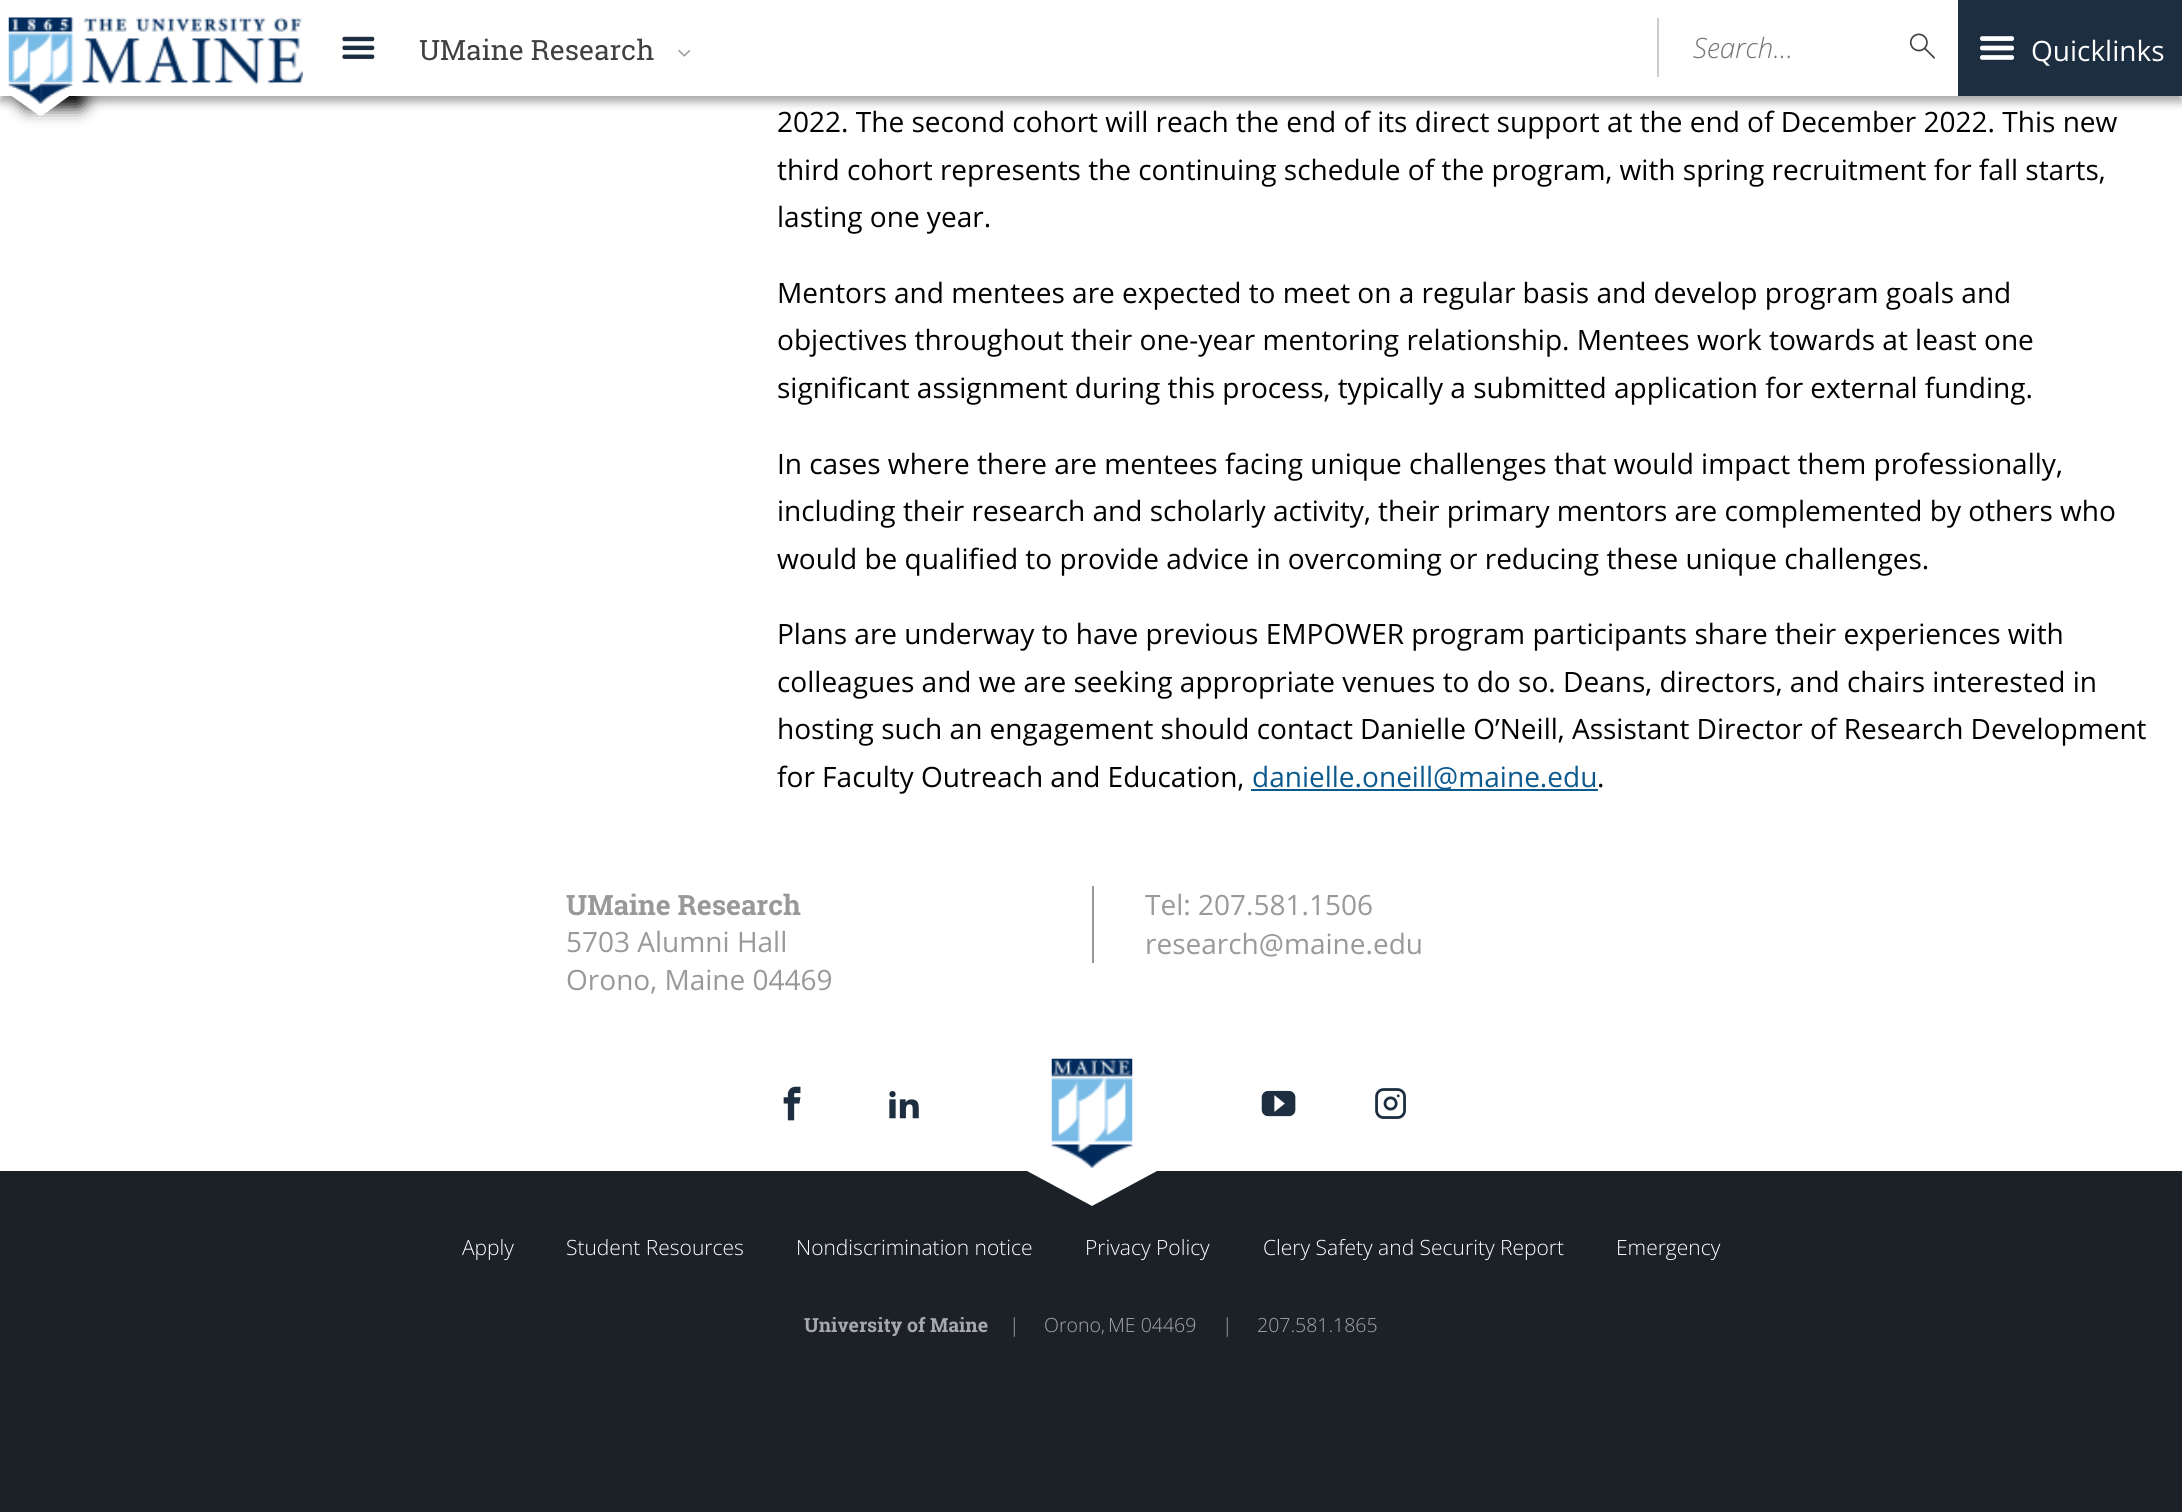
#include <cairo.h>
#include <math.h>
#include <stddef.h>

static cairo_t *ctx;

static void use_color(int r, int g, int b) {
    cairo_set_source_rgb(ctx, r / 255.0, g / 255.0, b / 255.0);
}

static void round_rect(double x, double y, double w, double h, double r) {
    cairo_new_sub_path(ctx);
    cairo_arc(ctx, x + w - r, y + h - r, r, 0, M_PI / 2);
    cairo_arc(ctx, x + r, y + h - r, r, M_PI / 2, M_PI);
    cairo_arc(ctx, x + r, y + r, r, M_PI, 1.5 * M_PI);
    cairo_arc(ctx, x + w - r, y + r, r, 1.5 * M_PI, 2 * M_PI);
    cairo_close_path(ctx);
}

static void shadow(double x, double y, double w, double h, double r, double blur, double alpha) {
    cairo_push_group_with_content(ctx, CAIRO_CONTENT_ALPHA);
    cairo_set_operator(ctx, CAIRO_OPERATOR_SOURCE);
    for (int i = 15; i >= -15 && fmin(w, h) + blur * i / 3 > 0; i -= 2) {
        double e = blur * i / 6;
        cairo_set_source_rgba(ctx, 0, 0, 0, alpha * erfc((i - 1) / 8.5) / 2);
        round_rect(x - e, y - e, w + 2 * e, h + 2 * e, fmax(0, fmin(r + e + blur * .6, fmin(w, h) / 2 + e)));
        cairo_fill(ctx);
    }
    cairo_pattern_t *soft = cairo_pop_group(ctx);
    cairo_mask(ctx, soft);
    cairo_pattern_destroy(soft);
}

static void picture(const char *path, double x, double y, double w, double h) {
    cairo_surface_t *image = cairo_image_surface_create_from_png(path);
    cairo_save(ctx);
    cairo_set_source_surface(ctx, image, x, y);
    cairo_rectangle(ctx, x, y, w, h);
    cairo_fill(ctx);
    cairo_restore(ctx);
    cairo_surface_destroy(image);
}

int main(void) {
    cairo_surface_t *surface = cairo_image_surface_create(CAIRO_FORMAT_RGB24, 2182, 1512);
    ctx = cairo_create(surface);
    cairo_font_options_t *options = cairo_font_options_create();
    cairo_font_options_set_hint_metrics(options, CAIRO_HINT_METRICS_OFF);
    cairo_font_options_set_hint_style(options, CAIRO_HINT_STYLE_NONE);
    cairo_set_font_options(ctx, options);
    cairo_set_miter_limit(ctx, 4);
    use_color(255, 255, 255);
    cairo_paint(ctx);
    use_color(0, 0, 0);
    shadow(0, 5, 2182, 97, 0, 4.5, 0.35);
    use_color(255, 255, 255);
    cairo_rectangle(ctx, 0, 0, 1958, 96);
    cairo_fill(ctx);
    use_color(0, 0, 0);
    shadow(23, 72, 61, 35, 4, 8.5, 1);
    use_color(255, 255, 255);
    cairo_new_path(ctx);
    cairo_move_to(ctx, 12, 93);
    cairo_line_to(ctx, 57, 62);
    cairo_curve_to(ctx, 58, 61, 61, 61, 63, 62);
    cairo_line_to(ctx, 87, 79);
    cairo_curve_to(ctx, 89, 81, 89, 82, 87, 83);
    cairo_line_to(ctx, 43, 115);
    cairo_curve_to(ctx, 41, 116, 39, 116, 37, 114);
    cairo_line_to(ctx, 13, 97);
    cairo_curve_to(ctx, 11, 96, 11, 94, 12, 93);
    cairo_close_path(ctx);
    cairo_fill(ctx);
    cairo_rectangle(ctx, 3, 52, 101, 44);
    cairo_fill(ctx);
    picture("img1.png", 8, 17, 295, 87);
    picture("img2.png", 342, 36, 33, 23);
    cairo_select_font_face(ctx, "Roboto Slab", CAIRO_FONT_SLANT_NORMAL, CAIRO_FONT_WEIGHT_NORMAL);
    cairo_set_font_size(ctx, 28);
    use_color(64, 64, 65);
    cairo_move_to(ctx, 419, 60);
    cairo_show_text(ctx, "UMaine Research");
    picture("img3.png", 678, 49, 13, 8);
    use_color(204, 204, 204);
    cairo_rectangle(ctx, 1657, 18, 2, 59);
    cairo_fill(ctx);
    cairo_select_font_face(ctx, "Open Sans Light", CAIRO_FONT_SLANT_ITALIC, CAIRO_FONT_WEIGHT_NORMAL);
    use_color(117, 117, 117);
    cairo_move_to(ctx, 1693, 58);
    cairo_show_text(ctx, "Search...");
    picture("img4.png", 1909, 33, 26, 26);
    use_color(28, 46, 63);
    cairo_rectangle(ctx, 1958, 0, 224, 96);
    cairo_fill(ctx);
    picture("img5.png", 1980, 36, 35, 24);
    cairo_select_font_face(ctx, "Open Sans", CAIRO_FONT_SLANT_NORMAL, CAIRO_FONT_WEIGHT_NORMAL);
    use_color(255, 255, 255);
    cairo_move_to(ctx, 2031, 61);
    cairo_show_text(ctx, "Quicklinks");
    use_color(0, 0, 0);
    cairo_move_to(ctx, 777, 132);
    cairo_show_text(ctx, "2022. The second cohort will reach the end of its direct support at the end of December 2022. This new");
    cairo_move_to(ctx, 777, 180);
    cairo_show_text(ctx, "third cohort represents the continuing schedule of the program, with spring recruitment for fall starts,");
    cairo_move_to(ctx, 777, 227);
    cairo_show_text(ctx, "lasting one year.");
    cairo_move_to(ctx, 777, 303);
    cairo_show_text(ctx, "Mentors and mentees are expected to meet on a regular basis and develop program goals and");
    cairo_move_to(ctx, 777, 350);
    cairo_show_text(ctx, "objectives throughout their one-year mentoring relationship. Mentees work towards at least one");
    cairo_move_to(ctx, 777, 398);
    cairo_show_text(ctx, "significant assignment during this process, typically a submitted application for external funding.");
    cairo_move_to(ctx, 777, 474);
    cairo_show_text(ctx, "In cases where there are mentees facing unique challenges that would impact them professionally,");
    cairo_move_to(ctx, 777, 521);
    cairo_show_text(ctx, "including their research and scholarly activity, their primary mentors are complemented by others who");
    cairo_move_to(ctx, 777, 569);
    cairo_show_text(ctx, "would be qualified to provide advice in overcoming or reducing these unique challenges.");
    cairo_move_to(ctx, 777, 644);
    cairo_show_text(ctx, "Plans are underway to have previous EMPOWER program participants share their experiences with");
    cairo_move_to(ctx, 777, 692);
    cairo_show_text(ctx, "colleagues and we are seeking appropriate venues to do so. Deans, directors, and chairs interested in");
    cairo_move_to(ctx, 777, 739);
    cairo_show_text(ctx, "hosting such an engagement should contact Danielle O’Neill, Assistant Director of Research Development");
    cairo_move_to(ctx, 777, 787);
    cairo_show_text(ctx, "for Faculty Outreach and Education,");
    use_color(12, 89, 142);
    cairo_rectangle(ctx, 1251, 789, 347, 2);
    cairo_fill(ctx);
    cairo_move_to(ctx, 1252, 787);
    cairo_show_text(ctx, "danielle.oneill@maine.edu");
    use_color(0, 0, 0);
    cairo_move_to(ctx, 1597, 787);
    cairo_show_text(ctx, ".");
    cairo_select_font_face(ctx, "Roboto Slab", CAIRO_FONT_SLANT_NORMAL, CAIRO_FONT_WEIGHT_BOLD);
    use_color(153, 153, 153);
    cairo_move_to(ctx, 566, 915);
    cairo_show_text(ctx, "UMaine Research");
    cairo_select_font_face(ctx, "Open Sans", CAIRO_FONT_SLANT_NORMAL, CAIRO_FONT_WEIGHT_NORMAL);
    cairo_move_to(ctx, 566, 952);
    cairo_show_text(ctx, "5703 Alumni Hall");
    cairo_move_to(ctx, 566, 990);
    cairo_show_text(ctx, "Orono, Maine 04469");
    cairo_rectangle(ctx, 1092, 886, 2, 77);
    cairo_fill(ctx);
    cairo_move_to(ctx, 1145, 915);
    cairo_show_text(ctx, "Tel: 207.581.1506");
    cairo_move_to(ctx, 1145, 954);
    cairo_show_text(ctx, "research@maine.edu");
    picture("img6.png", 1051, 1058, 82, 110);
    picture("img7.png", 783, 1086, 18, 35);
    picture("img8.png", 889, 1091, 30, 28);
    picture("img9.png", 1261, 1090, 35, 27);
    picture("img10.png", 1375, 1088, 31, 31);
    use_color(28, 33, 40);
    cairo_rectangle(ctx, 0, 1171, 2182, 341);
    cairo_fill(ctx);
    use_color(255, 255, 255);
    cairo_new_path(ctx);
    cairo_move_to(ctx, 1027, 1171);
    cairo_line_to(ctx, 1157, 1171);
    cairo_line_to(ctx, 1092, 1206);
    cairo_close_path(ctx);
    cairo_fill(ctx);
    cairo_select_font_face(ctx, "Open Sans Light", CAIRO_FONT_SLANT_NORMAL, CAIRO_FONT_WEIGHT_NORMAL);
    cairo_set_font_size(ctx, 21);
    cairo_move_to(ctx, 462, 1255);
    cairo_show_text(ctx, "Apply");
    cairo_move_to(ctx, 566, 1255);
    cairo_show_text(ctx, "Student Resources");
    cairo_move_to(ctx, 796, 1255);
    cairo_show_text(ctx, "Nondiscrimination notice");
    cairo_move_to(ctx, 1085, 1255);
    cairo_show_text(ctx, "Privacy Policy");
    cairo_move_to(ctx, 1263, 1255);
    cairo_show_text(ctx, "Clery Safety and Security Report");
    cairo_move_to(ctx, 1616, 1255);
    cairo_show_text(ctx, "Emergency");
    cairo_select_font_face(ctx, "Roboto Slab", CAIRO_FONT_SLANT_NORMAL, CAIRO_FONT_WEIGHT_BOLD);
    cairo_set_font_size(ctx, 19.5);
    use_color(166, 168, 171);
    cairo_move_to(ctx, 804, 1332);
    cairo_show_text(ctx, "University of Maine");
    cairo_select_font_face(ctx, "Open Sans Light", CAIRO_FONT_SLANT_NORMAL, CAIRO_FONT_WEIGHT_NORMAL);
    cairo_move_to(ctx, 1009, 1332);
    cairo_show_text(ctx, "|");
    cairo_move_to(ctx, 1044, 1332);
    cairo_show_text(ctx, "Orono,");
    cairo_move_to(ctx, 1108, 1332);
    cairo_show_text(ctx, "ME 04469");
    cairo_move_to(ctx, 1222, 1332);
    cairo_show_text(ctx, "|");
    cairo_move_to(ctx, 1257, 1332);
    cairo_show_text(ctx, "207.581.1865");
    cairo_surface_write_to_png(surface, "result.png");
    cairo_font_options_destroy(options);
    cairo_destroy(ctx);
    cairo_surface_destroy(surface);
    return 0;
}
